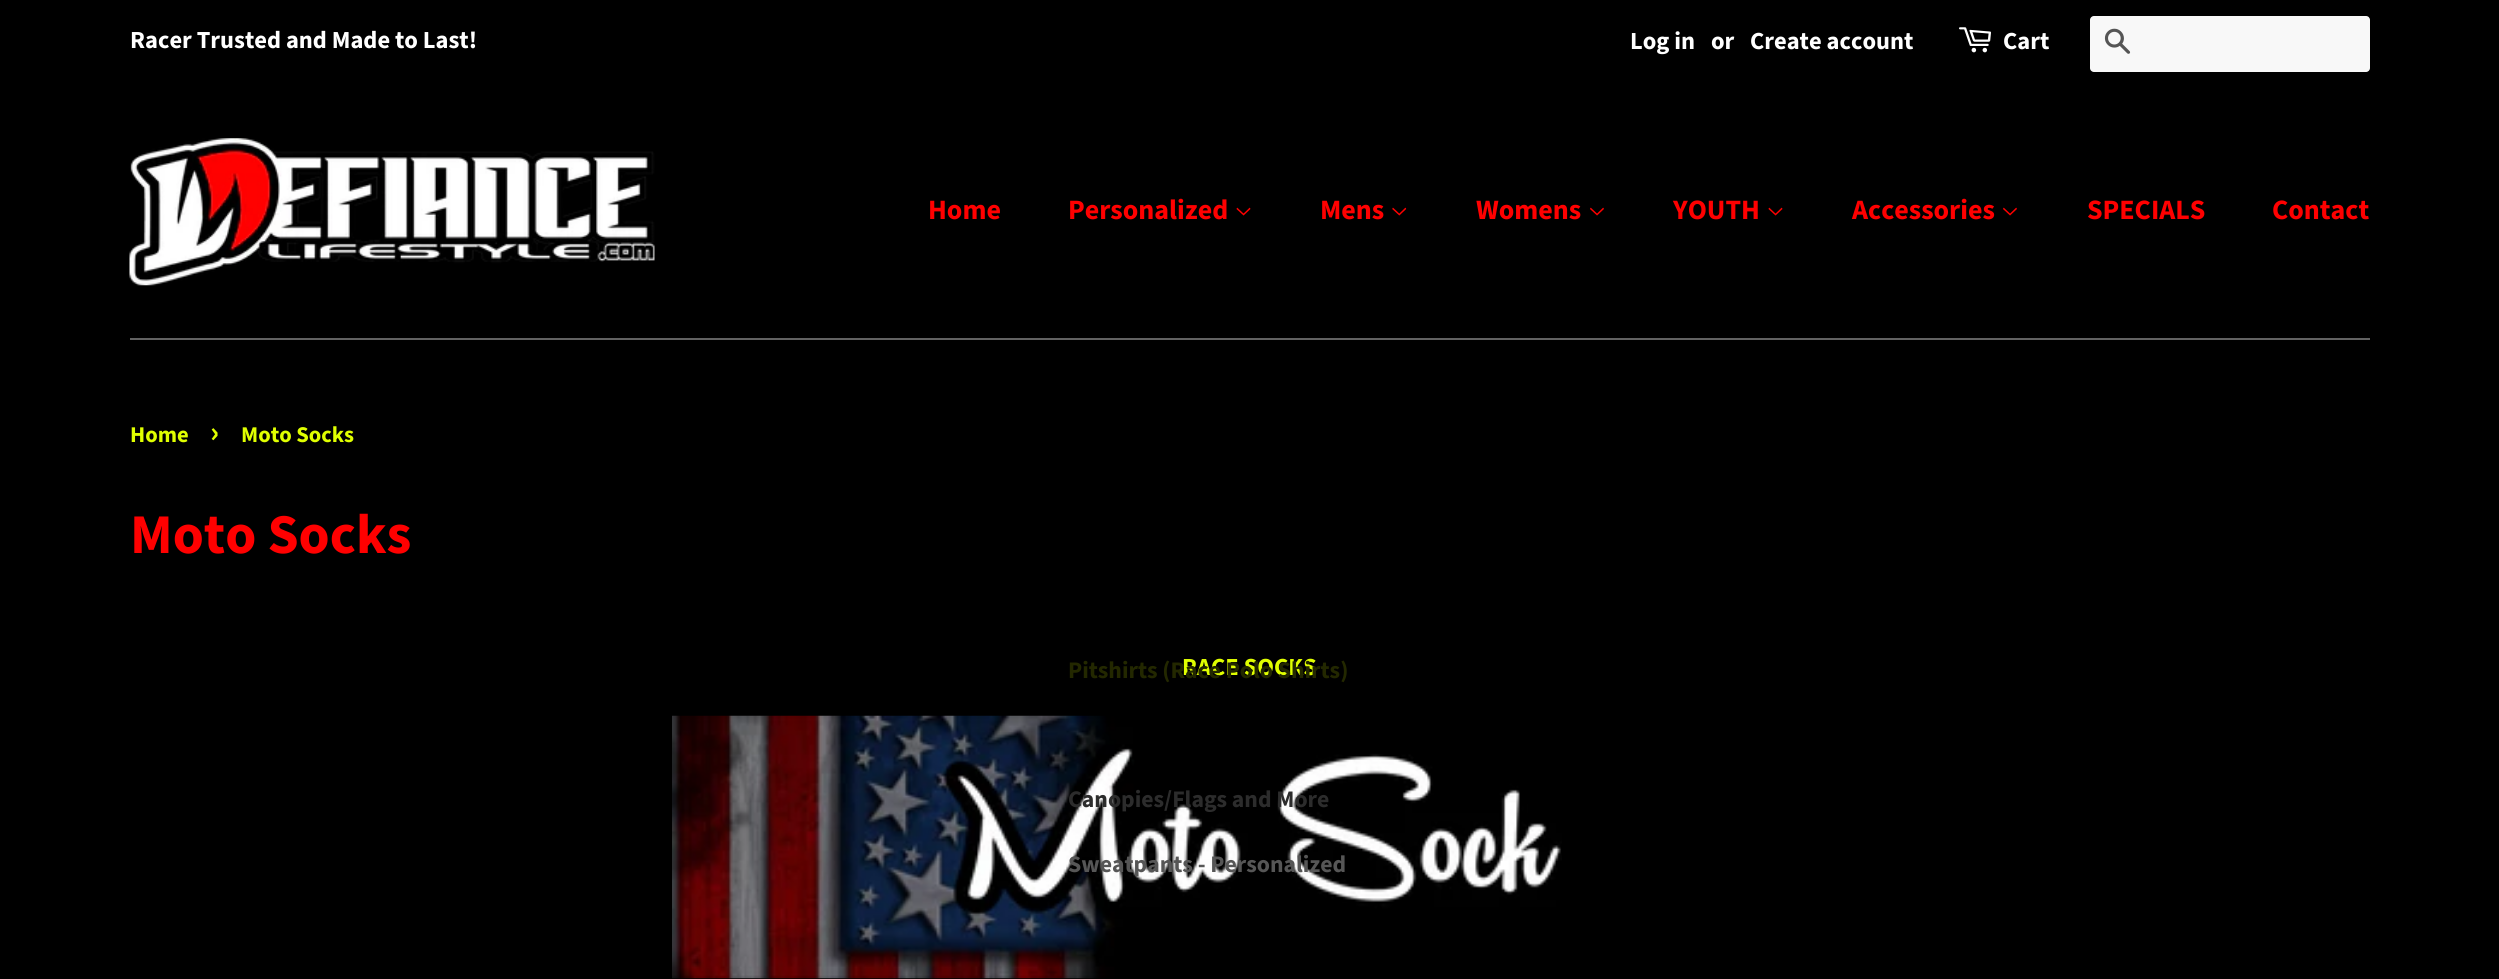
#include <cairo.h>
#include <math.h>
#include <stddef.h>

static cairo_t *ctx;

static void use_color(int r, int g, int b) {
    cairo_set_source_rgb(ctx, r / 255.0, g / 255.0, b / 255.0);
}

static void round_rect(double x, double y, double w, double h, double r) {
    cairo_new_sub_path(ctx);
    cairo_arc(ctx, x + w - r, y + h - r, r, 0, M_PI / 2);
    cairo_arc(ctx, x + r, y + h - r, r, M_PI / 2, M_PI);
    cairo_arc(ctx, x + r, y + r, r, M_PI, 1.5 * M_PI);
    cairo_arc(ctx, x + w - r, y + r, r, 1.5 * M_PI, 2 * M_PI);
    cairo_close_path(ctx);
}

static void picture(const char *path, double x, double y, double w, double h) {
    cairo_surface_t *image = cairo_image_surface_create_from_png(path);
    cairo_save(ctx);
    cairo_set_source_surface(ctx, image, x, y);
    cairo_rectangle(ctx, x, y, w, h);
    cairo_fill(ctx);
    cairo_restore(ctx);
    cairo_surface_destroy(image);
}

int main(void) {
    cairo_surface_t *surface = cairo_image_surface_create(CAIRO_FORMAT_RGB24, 2499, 979);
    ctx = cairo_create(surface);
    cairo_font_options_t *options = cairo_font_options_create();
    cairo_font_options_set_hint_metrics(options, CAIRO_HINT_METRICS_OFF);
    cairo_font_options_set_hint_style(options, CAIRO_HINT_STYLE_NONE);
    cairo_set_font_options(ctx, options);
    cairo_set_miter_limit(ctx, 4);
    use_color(0, 0, 0);
    cairo_paint(ctx);
    cairo_select_font_face(ctx, "Source Sans Pro", CAIRO_FONT_SLANT_NORMAL, CAIRO_FONT_WEIGHT_BOLD);
    cairo_set_font_size(ctx, 24.5);
    use_color(255, 255, 255);
    cairo_move_to(ctx, 130, 48);
    cairo_show_text(ctx, "Racer Trusted and Made to Last!");
    cairo_move_to(ctx, 1630, 49);
    cairo_show_text(ctx, "Log in");
    cairo_move_to(ctx, 1711, 49);
    cairo_show_text(ctx, "or");
    cairo_move_to(ctx, 1750, 49);
    cairo_show_text(ctx, "Create account");
    picture("img1.png", 1959, 27, 32, 26);
    cairo_move_to(ctx, 2003, 49);
    cairo_show_text(ctx, "Cart");
    round_rect(2090, 16, 280, 56, 4);
    cairo_fill(ctx);
    cairo_set_source_rgba(ctx, 0, 0, 0, 0.03);
    cairo_rectangle(ctx, 2090, 16, 280, 56);
    cairo_fill(ctx);
    picture("img2.png", 2104, 28, 27, 26);
    use_color(98, 98, 98);
    cairo_rectangle(ctx, 130, 338, 2240, 2);
    cairo_fill(ctx);
    picture("img3.png", 129, 138, 526, 148);
    cairo_set_font_size(ctx, 28);
    use_color(255, 0, 0);
    cairo_move_to(ctx, 928, 219);
    cairo_show_text(ctx, "Home");
    cairo_move_to(ctx, 1068, 219);
    cairo_show_text(ctx, "Personalized");
    picture("img4.png", 1236, 207, 15, 9);
    cairo_set_font_size(ctx, 24.5);
    use_color(224, 255, 0);
    cairo_move_to(ctx, 1182, 675);
    cairo_show_text(ctx, "RACE SOCKS");
    cairo_set_font_size(ctx, 23.75);
    use_color(35, 40, 0);
    cairo_move_to(ctx, 1068, 678);
    cairo_show_text(ctx, "Pitshirts (Race Polo Shirts)");
    picture("img7.png", 672, 715, 890, 264);
    use_color(44, 44, 44);
    cairo_move_to(ctx, 1068, 807);
    cairo_show_text(ctx, "Canopies/Flags and More");
    use_color(86, 86, 86);
    cairo_move_to(ctx, 1068, 872);
    cairo_show_text(ctx, "Sweatpants - Personalized");
    cairo_set_font_size(ctx, 28);
    use_color(255, 0, 0);
    cairo_move_to(ctx, 1320, 219);
    cairo_show_text(ctx, "Mens");
    picture("img5.png", 1392, 207, 15, 9);
    cairo_move_to(ctx, 1476, 219);
    cairo_show_text(ctx, "Womens");
    picture("img6.png", 1590, 207, 14, 9);
    cairo_move_to(ctx, 1673, 219);
    cairo_show_text(ctx, "YOUTH");
    picture("img4.png", 1768, 207, 15, 9);
    cairo_move_to(ctx, 1852, 219);
    cairo_show_text(ctx, "Accessories");
    picture("img6.png", 2003, 207, 14, 9);
    cairo_move_to(ctx, 2087, 219);
    cairo_show_text(ctx, "SPECIALS");
    cairo_move_to(ctx, 2272, 219);
    cairo_show_text(ctx, "Contact");
    cairo_set_font_size(ctx, 22.5);
    use_color(224, 255, 0);
    cairo_move_to(ctx, 130, 442);
    cairo_show_text(ctx, "Home");
    cairo_set_font_size(ctx, 31);
    cairo_move_to(ctx, 210, 442);
    cairo_show_text(ctx, "›");
    cairo_set_font_size(ctx, 22.5);
    cairo_move_to(ctx, 241, 442);
    cairo_show_text(ctx, "Moto Socks");
    cairo_set_font_size(ctx, 56);
    use_color(255, 0, 0);
    cairo_move_to(ctx, 130, 553);
    cairo_show_text(ctx, "Moto Socks");
    cairo_surface_write_to_png(surface, "result.png");
    cairo_font_options_destroy(options);
    cairo_destroy(ctx);
    cairo_surface_destroy(surface);
    return 0;
}
